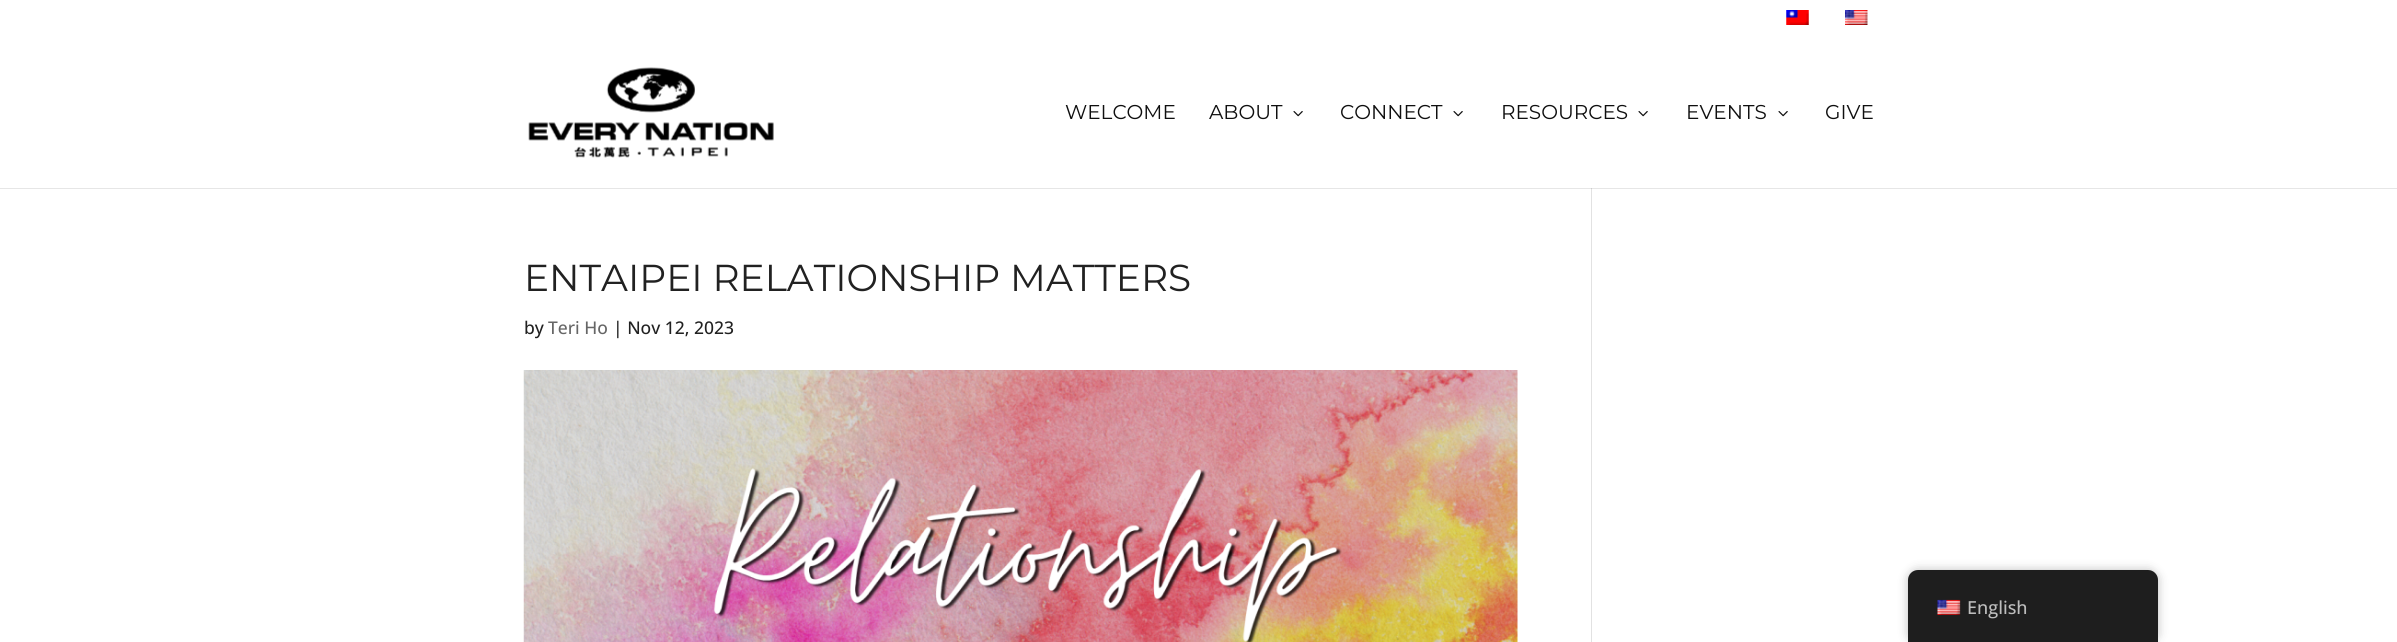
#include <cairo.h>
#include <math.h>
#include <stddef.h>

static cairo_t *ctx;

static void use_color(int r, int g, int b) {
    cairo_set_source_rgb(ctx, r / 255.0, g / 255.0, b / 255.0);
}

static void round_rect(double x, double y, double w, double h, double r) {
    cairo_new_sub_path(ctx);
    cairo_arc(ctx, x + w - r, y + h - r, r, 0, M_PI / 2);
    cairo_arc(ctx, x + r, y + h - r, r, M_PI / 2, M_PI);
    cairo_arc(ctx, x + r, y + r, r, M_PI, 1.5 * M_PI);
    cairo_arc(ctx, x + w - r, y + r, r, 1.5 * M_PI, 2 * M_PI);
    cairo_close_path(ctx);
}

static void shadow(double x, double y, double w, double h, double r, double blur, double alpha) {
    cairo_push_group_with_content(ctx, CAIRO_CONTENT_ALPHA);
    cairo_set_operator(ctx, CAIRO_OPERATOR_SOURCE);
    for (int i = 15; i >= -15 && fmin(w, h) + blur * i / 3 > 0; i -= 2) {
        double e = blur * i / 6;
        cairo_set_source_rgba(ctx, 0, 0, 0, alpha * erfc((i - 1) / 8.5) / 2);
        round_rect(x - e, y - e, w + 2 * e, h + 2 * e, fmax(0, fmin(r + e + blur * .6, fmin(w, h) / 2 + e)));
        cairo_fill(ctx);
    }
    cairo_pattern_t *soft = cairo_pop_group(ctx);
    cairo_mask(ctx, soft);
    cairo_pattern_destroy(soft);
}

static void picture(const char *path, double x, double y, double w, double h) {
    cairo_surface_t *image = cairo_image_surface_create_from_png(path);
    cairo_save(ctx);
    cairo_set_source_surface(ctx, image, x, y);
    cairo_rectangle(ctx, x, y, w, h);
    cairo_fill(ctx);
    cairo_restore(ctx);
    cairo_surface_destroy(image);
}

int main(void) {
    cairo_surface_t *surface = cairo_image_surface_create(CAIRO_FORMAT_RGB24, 2397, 642);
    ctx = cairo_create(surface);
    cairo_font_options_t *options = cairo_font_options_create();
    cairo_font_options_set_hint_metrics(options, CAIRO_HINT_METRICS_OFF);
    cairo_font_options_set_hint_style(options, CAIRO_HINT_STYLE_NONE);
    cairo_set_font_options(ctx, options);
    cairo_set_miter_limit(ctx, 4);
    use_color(255, 255, 255);
    cairo_paint(ctx);
    picture("img1.png", 1786, 10, 23, 15);
    picture("img2.png", 1845, 10, 23, 15);
    use_color(226, 226, 226);
    cairo_rectangle(ctx, 1591, 188, 1, 454);
    cairo_fill(ctx);
    cairo_set_source_rgba(ctx, 0, 0, 0, 0.1);
    cairo_new_path(ctx);
    cairo_move_to(ctx, 0, 188);
    cairo_line_to(ctx, 0, 189);
    cairo_line_to(ctx, 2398, 189);
    cairo_line_to(ctx, 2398, 39);
    cairo_line_to(ctx, 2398, 188);
    cairo_close_path(ctx);
    cairo_fill(ctx);
    picture("img3.png", 528, 67, 246, 91);
    cairo_select_font_face(ctx, "Montserrat", CAIRO_FONT_SLANT_NORMAL, CAIRO_FONT_WEIGHT_NORMAL);
    cairo_set_font_size(ctx, 20);
    use_color(15, 15, 15);
    cairo_move_to(ctx, 1065, 119);
    cairo_show_text(ctx, "WELCOME");
    cairo_move_to(ctx, 1209, 119);
    cairo_show_text(ctx, "ABOUT");
    picture("img4.png", 1293, 111, 10, 6);
    cairo_move_to(ctx, 1340, 119);
    cairo_show_text(ctx, "CONNECT");
    picture("img4.png", 1453, 111, 10, 6);
    cairo_move_to(ctx, 1501, 119);
    cairo_show_text(ctx, "RESOURCES");
    picture("img4.png", 1638, 111, 10, 6);
    cairo_move_to(ctx, 1686, 119);
    cairo_show_text(ctx, "EVENTS");
    picture("img4.png", 1778, 111, 10, 6);
    cairo_move_to(ctx, 1825, 119);
    cairo_show_text(ctx, "GIVE");
    cairo_set_font_size(ctx, 37.5);
    use_color(33, 33, 33);
    cairo_move_to(ctx, 524, 291);
    cairo_show_text(ctx, "ENTAIPEI RELATIONSHIP MATTERS");
    cairo_select_font_face(ctx, "Open Sans Medium", CAIRO_FONT_SLANT_NORMAL, CAIRO_FONT_WEIGHT_NORMAL);
    cairo_set_font_size(ctx, 17.5);
    cairo_move_to(ctx, 524, 334);
    cairo_show_text(ctx, "by");
    use_color(102, 102, 102);
    cairo_move_to(ctx, 548, 334);
    cairo_show_text(ctx, "Teri Ho");
    use_color(33, 33, 33);
    cairo_move_to(ctx, 613, 334);
    cairo_show_text(ctx, "| Nov 12, 2023");
    picture("img5.png", 523, 370, 995, 272);
    use_color(0, 0, 0);
    shadow(1908, 570, 250, 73, 10, 5, 0.25);
    use_color(30, 30, 30);
    cairo_new_path(ctx);
    cairo_move_to(ctx, 1918, 570);
    cairo_line_to(ctx, 2148, 570);
    cairo_curve_to(ctx, 2153.5, 570, 2158, 574.5, 2158, 580);
    cairo_line_to(ctx, 2158, 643);
    cairo_line_to(ctx, 1908, 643);
    cairo_line_to(ctx, 1908, 580);
    cairo_curve_to(ctx, 1908, 574.5, 1912.5, 570, 1918, 570);
    cairo_close_path(ctx);
    cairo_fill(ctx);
    picture("img6.png", 1937, 599, 24, 16);
    cairo_set_font_size(ctx, 18);
    use_color(189, 189, 189);
    cairo_move_to(ctx, 1967, 614);
    cairo_show_text(ctx, "English");
    cairo_surface_write_to_png(surface, "result.png");
    cairo_font_options_destroy(options);
    cairo_destroy(ctx);
    cairo_surface_destroy(surface);
    return 0;
}
